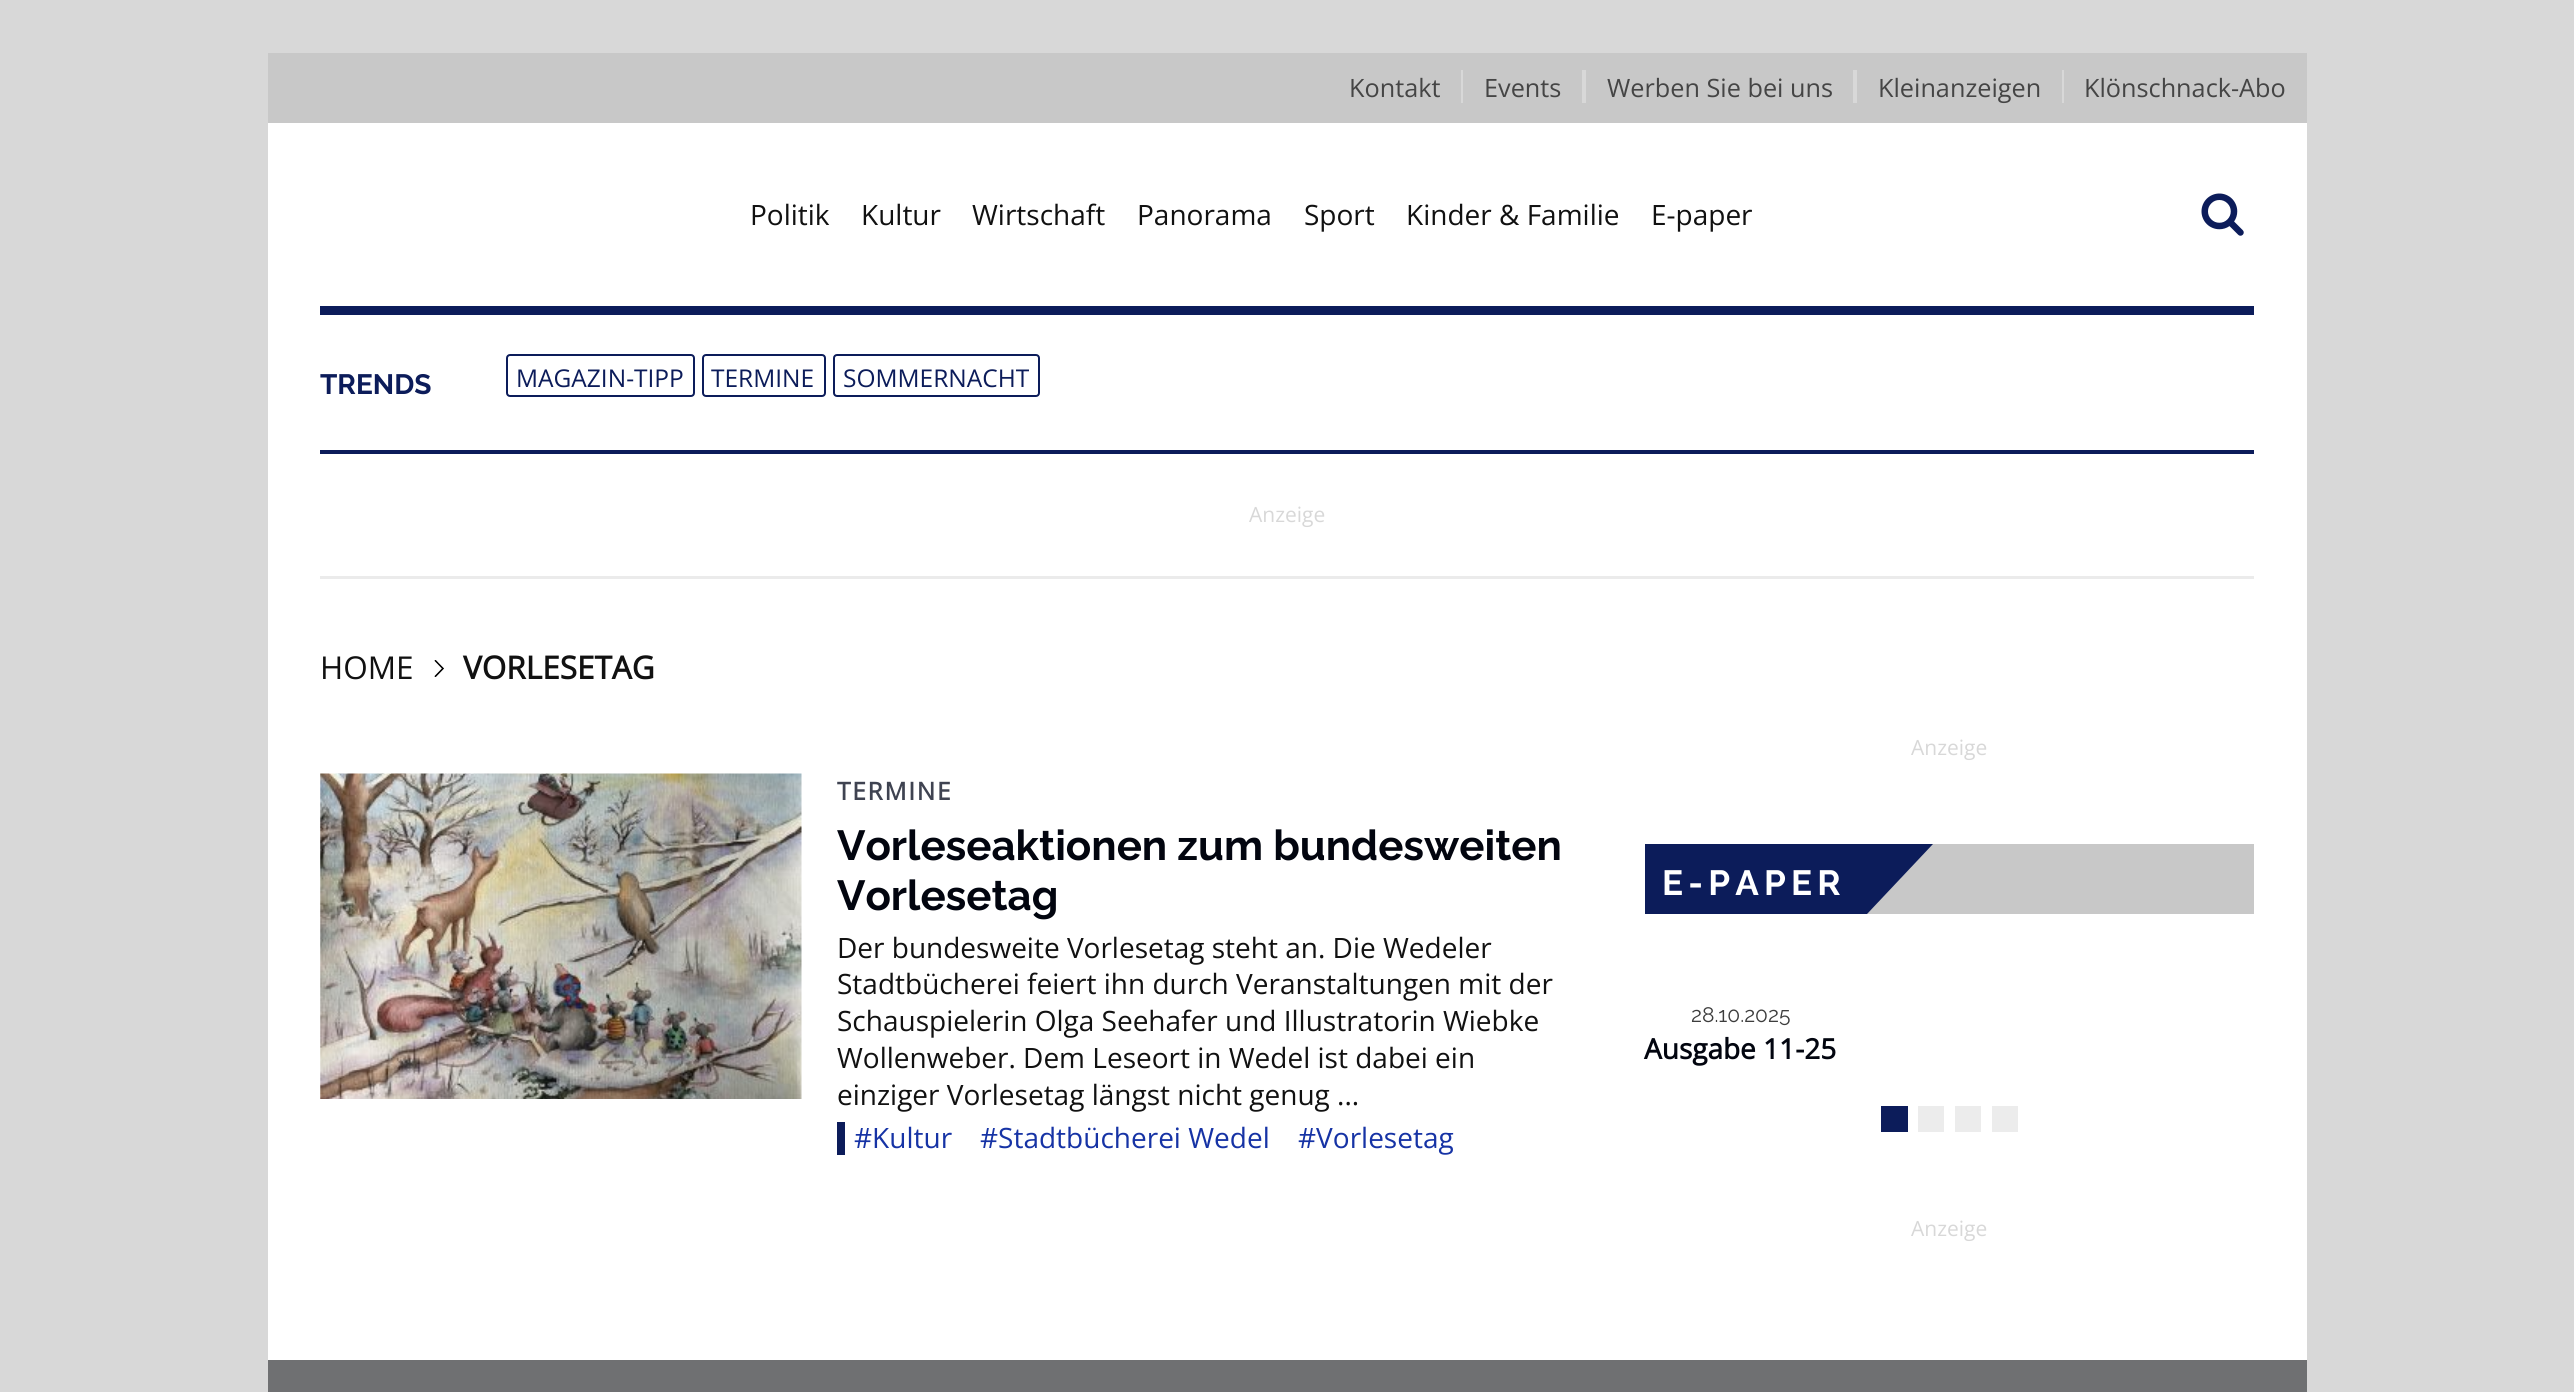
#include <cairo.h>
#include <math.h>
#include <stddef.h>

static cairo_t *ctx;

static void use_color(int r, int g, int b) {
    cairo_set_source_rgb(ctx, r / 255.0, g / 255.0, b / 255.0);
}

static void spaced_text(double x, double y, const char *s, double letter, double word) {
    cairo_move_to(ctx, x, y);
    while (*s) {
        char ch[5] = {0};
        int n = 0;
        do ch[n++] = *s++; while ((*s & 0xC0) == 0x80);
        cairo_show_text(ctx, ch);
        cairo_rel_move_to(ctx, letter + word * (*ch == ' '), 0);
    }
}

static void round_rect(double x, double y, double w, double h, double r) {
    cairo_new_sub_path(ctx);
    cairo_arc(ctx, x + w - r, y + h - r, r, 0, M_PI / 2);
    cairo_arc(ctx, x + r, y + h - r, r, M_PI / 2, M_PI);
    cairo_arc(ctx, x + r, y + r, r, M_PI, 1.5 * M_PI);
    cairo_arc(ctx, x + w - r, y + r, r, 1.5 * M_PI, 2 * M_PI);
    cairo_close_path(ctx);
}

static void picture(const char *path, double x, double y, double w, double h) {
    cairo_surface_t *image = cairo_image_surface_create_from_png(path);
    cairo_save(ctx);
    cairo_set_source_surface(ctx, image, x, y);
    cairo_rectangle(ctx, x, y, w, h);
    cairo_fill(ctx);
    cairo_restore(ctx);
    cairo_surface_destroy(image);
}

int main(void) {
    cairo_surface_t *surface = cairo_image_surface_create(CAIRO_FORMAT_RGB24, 2574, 1392);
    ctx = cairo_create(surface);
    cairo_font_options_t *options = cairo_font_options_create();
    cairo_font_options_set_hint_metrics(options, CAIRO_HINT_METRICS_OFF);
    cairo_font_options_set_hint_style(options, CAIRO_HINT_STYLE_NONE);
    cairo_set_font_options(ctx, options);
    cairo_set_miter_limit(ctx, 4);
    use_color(216, 216, 216);
    cairo_paint(ctx);
    use_color(255, 255, 255);
    cairo_rectangle(ctx, 268, 123, 2039, 1237);
    cairo_fill(ctx);
    use_color(200, 200, 200);
    cairo_rectangle(ctx, 268, 53, 2039, 70);
    cairo_fill(ctx);
    cairo_select_font_face(ctx, "Open Sans", CAIRO_FONT_SLANT_NORMAL, CAIRO_FONT_WEIGHT_NORMAL);
    cairo_set_font_size(ctx, 25.25);
    use_color(69, 69, 69);
    cairo_move_to(ctx, 1349, 97);
    cairo_show_text(ctx, "Kontakt");
    cairo_move_to(ctx, 1484, 97);
    cairo_show_text(ctx, "Events");
    use_color(216, 216, 216);
    cairo_rectangle(ctx, 1582, 70, 4, 33);
    cairo_fill(ctx);
    cairo_rectangle(ctx, 1461, 70, 2, 33);
    cairo_fill(ctx);
    use_color(69, 69, 69);
    cairo_move_to(ctx, 1607, 97);
    cairo_show_text(ctx, "Werben Sie bei uns");
    use_color(216, 216, 216);
    cairo_rectangle(ctx, 1853, 70, 4, 33);
    cairo_fill(ctx);
    use_color(69, 69, 69);
    cairo_move_to(ctx, 1878, 97);
    cairo_show_text(ctx, "Kleinanzeigen");
    use_color(216, 216, 216);
    cairo_rectangle(ctx, 2062, 70, 2, 33);
    cairo_fill(ctx);
    use_color(69, 69, 69);
    cairo_move_to(ctx, 2084, 97);
    cairo_show_text(ctx, "Klönschnack-Abo");
    use_color(12, 28, 90);
    cairo_rectangle(ctx, 320, 306, 1934, 9);
    cairo_fill(ctx);
    cairo_set_font_size(ctx, 28);
    use_color(17, 17, 17);
    cairo_move_to(ctx, 750, 225);
    cairo_show_text(ctx, "Politik");
    cairo_move_to(ctx, 861, 225);
    cairo_show_text(ctx, "Kultur");
    cairo_move_to(ctx, 972, 225);
    cairo_show_text(ctx, "Wirtschaft");
    cairo_move_to(ctx, 1137, 225);
    cairo_show_text(ctx, "Panorama");
    cairo_move_to(ctx, 1304, 225);
    cairo_show_text(ctx, "Sport");
    cairo_move_to(ctx, 1406, 225);
    cairo_show_text(ctx, "Kinder & Familie");
    cairo_move_to(ctx, 1651, 225);
    cairo_show_text(ctx, "E-paper");
    picture("img1.png", 2201, 193, 43, 43);
    use_color(12, 28, 90);
    cairo_rectangle(ctx, 320, 450, 1934, 4);
    cairo_fill(ctx);
    cairo_select_font_face(ctx, "Raleway", CAIRO_FONT_SLANT_NORMAL, CAIRO_FONT_WEIGHT_BOLD);
    cairo_move_to(ctx, 320, 394);
    cairo_show_text(ctx, "TRENDS");
    round_rect(507, 355, 187, 41, 3);
    cairo_stroke(ctx);
    cairo_select_font_face(ctx, "Open Sans", CAIRO_FONT_SLANT_NORMAL, CAIRO_FONT_WEIGHT_NORMAL);
    cairo_set_font_size(ctx, 24.5);
    cairo_move_to(ctx, 516, 387);
    cairo_show_text(ctx, "MAGAZIN-TIPP");
    round_rect(703, 355, 122, 41, 3);
    cairo_stroke(ctx);
    cairo_move_to(ctx, 711, 387);
    cairo_show_text(ctx, "TERMINE");
    round_rect(834, 355, 205, 41, 3);
    cairo_stroke(ctx);
    cairo_move_to(ctx, 843, 387);
    cairo_show_text(ctx, "SOMMERNACHT");
    use_color(235, 235, 235);
    cairo_rectangle(ctx, 320, 576, 1934, 3);
    cairo_fill(ctx);
    cairo_set_font_size(ctx, 21);
    use_color(216, 216, 216);
    cairo_move_to(ctx, 1249, 522);
    cairo_show_text(ctx, "Anzeige");
    cairo_set_font_size(ctx, 31.5);
    use_color(17, 17, 17);
    cairo_move_to(ctx, 320, 679);
    cairo_show_text(ctx, "HOME");
    picture("img2.png", 434, 660, 10, 17);
    cairo_select_font_face(ctx, "Open Sans", CAIRO_FONT_SLANT_NORMAL, CAIRO_FONT_WEIGHT_BOLD);
    cairo_move_to(ctx, 463, 679);
    cairo_show_text(ctx, "VORLESETAG");
    picture("img3.png", 320, 773, 482, 326);
    cairo_set_font_size(ctx, 24.5);
    use_color(63, 67, 81);
    spaced_text(837, 800, "TERMINE", 1.75, 0);
    cairo_select_font_face(ctx, "Raleway", CAIRO_FONT_SLANT_NORMAL, CAIRO_FONT_WEIGHT_BOLD);
    cairo_set_font_size(ctx, 42);
    use_color(2, 5, 15);
    cairo_move_to(ctx, 837, 860);
    cairo_show_text(ctx, "Vorleseaktionen zum bundesweiten");
    cairo_move_to(ctx, 837, 910);
    cairo_show_text(ctx, "Vorlesetag");
    cairo_select_font_face(ctx, "Open Sans", CAIRO_FONT_SLANT_NORMAL, CAIRO_FONT_WEIGHT_NORMAL);
    cairo_set_font_size(ctx, 28);
    use_color(17, 17, 17);
    cairo_move_to(ctx, 837, 958);
    cairo_show_text(ctx, "Der bundesweite Vorlesetag steht an. Die Wedeler");
    cairo_move_to(ctx, 837, 994);
    cairo_show_text(ctx, "Stadtbücherei feiert ihn durch Veranstaltungen mit der");
    cairo_move_to(ctx, 837, 1031);
    cairo_show_text(ctx, "Schauspielerin Olga Seehafer und Illustratorin Wiebke");
    cairo_move_to(ctx, 837, 1068);
    cairo_show_text(ctx, "Wollenweber. Dem Leseort in Wedel ist dabei ein");
    cairo_move_to(ctx, 837, 1105);
    cairo_show_text(ctx, "einziger Vorlesetag längst nicht genug ...");
    use_color(12, 28, 90);
    cairo_rectangle(ctx, 837, 1122, 8, 33);
    cairo_fill(ctx);
    use_color(22, 51, 165);
    cairo_move_to(ctx, 854, 1148);
    cairo_show_text(ctx, "#Kultur");
    cairo_move_to(ctx, 980, 1148);
    cairo_show_text(ctx, "#Stadtbücherei Wedel");
    cairo_move_to(ctx, 1298, 1148);
    cairo_show_text(ctx, "#Vorlesetag");
    cairo_set_font_size(ctx, 21);
    use_color(216, 216, 216);
    cairo_move_to(ctx, 1911, 755);
    cairo_show_text(ctx, "Anzeige");
    use_color(200, 200, 200);
    cairo_rectangle(ctx, 1867, 844, 387, 70);
    cairo_fill(ctx);
    use_color(12, 28, 90);
    cairo_new_path(ctx);
    cairo_move_to(ctx, 1645, 844);
    cairo_line_to(ctx, 1645, 914);
    cairo_line_to(ctx, 1867, 914);
    cairo_line_to(ctx, 1933, 844);
    cairo_close_path(ctx);
    cairo_fill(ctx);
    cairo_select_font_face(ctx, "Raleway", CAIRO_FONT_SLANT_NORMAL, CAIRO_FONT_WEIGHT_BOLD);
    cairo_set_font_size(ctx, 35);
    use_color(255, 255, 255);
    spaced_text(1662, 895, "E-PAPER", 5.25, 0);
    cairo_select_font_face(ctx, "Raleway", CAIRO_FONT_SLANT_NORMAL, CAIRO_FONT_WEIGHT_NORMAL);
    cairo_set_font_size(ctx, 21);
    use_color(61, 61, 61);
    cairo_move_to(ctx, 1691, 1022);
    cairo_show_text(ctx, "28.10.2025");
    cairo_select_font_face(ctx, "Open Sans", CAIRO_FONT_SLANT_NORMAL, CAIRO_FONT_WEIGHT_BOLD);
    cairo_set_font_size(ctx, 28);
    use_color(2, 5, 15);
    cairo_move_to(ctx, 1644, 1059);
    cairo_show_text(ctx, "Ausgabe 11-25");
    use_color(12, 28, 90);
    cairo_rectangle(ctx, 1881, 1106, 27, 26);
    cairo_fill(ctx);
    use_color(236, 236, 236);
    cairo_rectangle(ctx, 1918, 1106, 26, 26);
    cairo_fill(ctx);
    cairo_rectangle(ctx, 1955, 1106, 26, 26);
    cairo_fill(ctx);
    cairo_rectangle(ctx, 1992, 1106, 26, 26);
    cairo_fill(ctx);
    cairo_select_font_face(ctx, "Open Sans", CAIRO_FONT_SLANT_NORMAL, CAIRO_FONT_WEIGHT_NORMAL);
    cairo_set_font_size(ctx, 21);
    use_color(216, 216, 216);
    cairo_move_to(ctx, 1911, 1236);
    cairo_show_text(ctx, "Anzeige");
    use_color(111, 112, 114);
    cairo_rectangle(ctx, 268, 1360, 2039, 32);
    cairo_fill(ctx);
    cairo_surface_write_to_png(surface, "result.png");
    cairo_font_options_destroy(options);
    cairo_destroy(ctx);
    cairo_surface_destroy(surface);
    return 0;
}
